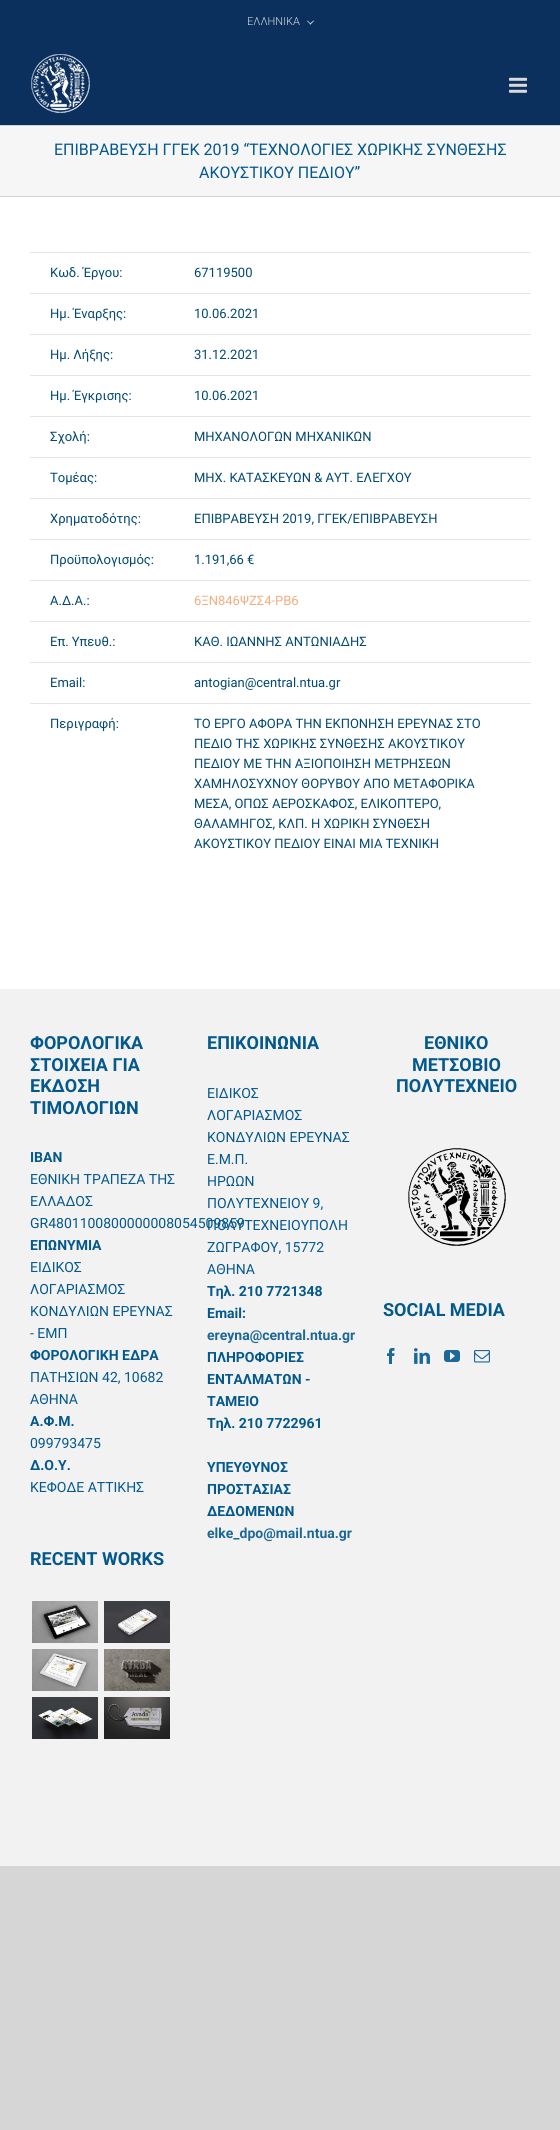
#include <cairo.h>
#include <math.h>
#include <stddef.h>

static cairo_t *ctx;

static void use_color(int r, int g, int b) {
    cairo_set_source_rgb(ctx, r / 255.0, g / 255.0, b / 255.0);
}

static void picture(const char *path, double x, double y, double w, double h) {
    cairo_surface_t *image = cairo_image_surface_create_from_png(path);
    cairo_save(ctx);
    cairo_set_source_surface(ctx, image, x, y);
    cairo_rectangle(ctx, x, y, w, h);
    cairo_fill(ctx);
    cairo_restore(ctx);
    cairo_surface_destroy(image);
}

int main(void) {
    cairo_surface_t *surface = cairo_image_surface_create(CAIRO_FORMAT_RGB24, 560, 2130);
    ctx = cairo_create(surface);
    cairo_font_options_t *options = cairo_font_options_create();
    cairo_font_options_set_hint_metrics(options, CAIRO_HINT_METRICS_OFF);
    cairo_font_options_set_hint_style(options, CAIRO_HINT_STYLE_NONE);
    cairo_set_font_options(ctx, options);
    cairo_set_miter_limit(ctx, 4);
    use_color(215, 214, 214);
    cairo_paint(ctx);
    use_color(255, 255, 255);
    cairo_rectangle(ctx, 0, 197, 560, 792);
    cairo_fill(ctx);
    use_color(12, 48, 94);
    cairo_rectangle(ctx, 0, 0, 560, 125);
    cairo_fill(ctx);
    cairo_select_font_face(ctx, "Roboto Light", CAIRO_FONT_SLANT_NORMAL, CAIRO_FONT_WEIGHT_NORMAL);
    cairo_set_font_size(ctx, 11);
    use_color(216, 221, 226);
    cairo_move_to(ctx, 247, 25);
    cairo_show_text(ctx, "ΕΛΛΗΝΙΚΑ");
    cairo_new_path(ctx);
    cairo_move_to(ctx, 313.5, 20.5);
    cairo_line_to(ctx, 314, 21);
    cairo_line_to(ctx, 310.5, 24.5);
    cairo_line_to(ctx, 309.5, 24);
    cairo_close_path(ctx);
    cairo_fill(ctx);
    cairo_new_path(ctx);
    cairo_move_to(ctx, 307.5, 20.5);
    cairo_line_to(ctx, 311, 24);
    cairo_line_to(ctx, 310.5, 24.5);
    cairo_line_to(ctx, 307, 21);
    cairo_close_path(ctx);
    cairo_fill(ctx);
    picture("img1.png", 31, 54, 59, 59);
    picture("img2.png", 509, 77, 18, 16);
    use_color(246, 246, 246);
    cairo_rectangle(ctx, 0, 126, 560, 70);
    cairo_fill(ctx);
    use_color(210, 211, 212);
    cairo_rectangle(ctx, 0, 125, 560, 1);
    cairo_fill(ctx);
    cairo_rectangle(ctx, 0, 196, 560, 1);
    cairo_fill(ctx);
    cairo_select_font_face(ctx, "Roboto", CAIRO_FONT_SLANT_NORMAL, CAIRO_FONT_WEIGHT_NORMAL);
    cairo_set_font_size(ctx, 16);
    use_color(3, 88, 140);
    cairo_move_to(ctx, 54, 155);
    cairo_show_text(ctx, "ΕΠΙΒΡΑΒΕΥΣΗ ΓΓΕΚ 2019 “ΤΕΧΝΟΛΟΓΙΕΣ ΧΩΡΙΚΗΣ ΣΥΝΘΕΣΗΣ");
    cairo_move_to(ctx, 199, 178);
    cairo_show_text(ctx, "ΑΚΟΥΣΤΙΚΟΥ ΠΕΔΙΟΥ”");
    cairo_set_font_size(ctx, 13);
    use_color(2, 72, 113);
    cairo_move_to(ctx, 50, 277);
    cairo_show_text(ctx, "Κωδ. Έργου:");
    use_color(229, 228, 227);
    cairo_rectangle(ctx, 30, 252, 501, 1);
    cairo_fill(ctx);
    use_color(2, 72, 113);
    cairo_move_to(ctx, 194, 277);
    cairo_show_text(ctx, "67119500");
    cairo_move_to(ctx, 50, 318);
    cairo_show_text(ctx, "Ημ. Έναρξης:");
    use_color(229, 228, 227);
    cairo_rectangle(ctx, 30, 293, 501, 1);
    cairo_fill(ctx);
    use_color(2, 72, 113);
    cairo_move_to(ctx, 194, 318);
    cairo_show_text(ctx, "10.06.2021");
    cairo_move_to(ctx, 50, 359);
    cairo_show_text(ctx, "Ημ. Λήξης:");
    use_color(229, 228, 227);
    cairo_rectangle(ctx, 30, 334, 501, 1);
    cairo_fill(ctx);
    use_color(2, 72, 113);
    cairo_move_to(ctx, 194, 359);
    cairo_show_text(ctx, "31.12.2021");
    cairo_move_to(ctx, 50, 400);
    cairo_show_text(ctx, "Ημ. Έγκρισης:");
    use_color(229, 228, 227);
    cairo_rectangle(ctx, 30, 375, 501, 1);
    cairo_fill(ctx);
    use_color(2, 72, 113);
    cairo_move_to(ctx, 194, 400);
    cairo_show_text(ctx, "10.06.2021");
    cairo_move_to(ctx, 50, 441);
    cairo_show_text(ctx, "Σχολή:");
    use_color(229, 228, 227);
    cairo_rectangle(ctx, 30, 416, 501, 1);
    cairo_fill(ctx);
    use_color(2, 72, 113);
    cairo_move_to(ctx, 194, 441);
    cairo_show_text(ctx, "ΜΗΧΑΝΟΛΟΓΩΝ ΜΗΧΑΝΙΚΩΝ");
    cairo_move_to(ctx, 50, 482);
    cairo_show_text(ctx, "Τομέας:");
    use_color(229, 228, 227);
    cairo_rectangle(ctx, 30, 457, 501, 1);
    cairo_fill(ctx);
    use_color(2, 72, 113);
    cairo_move_to(ctx, 194, 482);
    cairo_show_text(ctx, "ΜΗΧ. ΚΑΤΑΣΚΕΥΩΝ & ΑΥΤ. ΕΛΕΓΧΟΥ");
    cairo_move_to(ctx, 50, 523);
    cairo_show_text(ctx, "Χρηματοδότης:");
    use_color(229, 228, 227);
    cairo_rectangle(ctx, 30, 498, 501, 1);
    cairo_fill(ctx);
    use_color(2, 72, 113);
    cairo_move_to(ctx, 194, 523);
    cairo_show_text(ctx, "ΕΠΙΒΡΑΒΕΥΣΗ 2019, ΓΓΕΚ/ΕΠΙΒΡΑΒΕΥΣΗ");
    cairo_move_to(ctx, 50, 564);
    cairo_show_text(ctx, "Προϋπολογισμός:");
    use_color(229, 228, 227);
    cairo_rectangle(ctx, 30, 539, 501, 1);
    cairo_fill(ctx);
    use_color(2, 72, 113);
    cairo_move_to(ctx, 194, 564);
    cairo_show_text(ctx, "1.191,66 €");
    cairo_move_to(ctx, 50, 605);
    cairo_show_text(ctx, "Α.Δ.Α.:");
    use_color(229, 228, 227);
    cairo_rectangle(ctx, 30, 580, 501, 1);
    cairo_fill(ctx);
    use_color(242, 174, 128);
    cairo_move_to(ctx, 194, 605);
    cairo_show_text(ctx, "6ΞΝ846ΨΖΣ4-ΡΒ6");
    use_color(2, 72, 113);
    cairo_move_to(ctx, 50, 646);
    cairo_show_text(ctx, "Επ. Υπευθ.:");
    use_color(229, 228, 227);
    cairo_rectangle(ctx, 30, 621, 501, 1);
    cairo_fill(ctx);
    use_color(2, 72, 113);
    cairo_move_to(ctx, 194, 646);
    cairo_show_text(ctx, "ΚΑΘ. ΙΩΑΝΝΗΣ ΑΝΤΩΝΙΑΔΗΣ");
    cairo_move_to(ctx, 50, 687);
    cairo_show_text(ctx, "Email:");
    use_color(229, 228, 227);
    cairo_rectangle(ctx, 30, 662, 501, 1);
    cairo_fill(ctx);
    use_color(2, 72, 113);
    cairo_move_to(ctx, 194, 687);
    cairo_show_text(ctx, "antogian@central.ntua.gr");
    cairo_move_to(ctx, 50, 728);
    cairo_show_text(ctx, "Περιγραφή:");
    use_color(229, 228, 227);
    cairo_rectangle(ctx, 30, 703, 501, 1);
    cairo_fill(ctx);
    use_color(2, 72, 113);
    cairo_move_to(ctx, 194, 728);
    cairo_show_text(ctx, "ΤΟ ΕΡΓΟ ΑΦΟΡΑ ΤΗΝ ΕΚΠΟΝΗΣΗ ΕΡΕΥΝΑΣ ΣΤΟ");
    cairo_move_to(ctx, 194, 748);
    cairo_show_text(ctx, "ΠΕΔΙΟ ΤΗΣ ΧΩΡΙΚΗΣ ΣΥΝΘΕΣΗΣ ΑΚΟΥΣΤΙΚΟΥ");
    cairo_move_to(ctx, 194, 768);
    cairo_show_text(ctx, "ΠΕΔΙΟΥ ΜΕ ΤΗΝ ΑΞΙΟΠΟΙΗΣΗ ΜΕΤΡΗΣΕΩΝ");
    cairo_move_to(ctx, 194, 788);
    cairo_show_text(ctx, "ΧΑΜΗΛΟΣΥΧΝΟΥ ΘΟΡΥΒΟΥ ΑΠΟ ΜΕΤΑΦΟΡΙΚΑ");
    cairo_move_to(ctx, 194, 808);
    cairo_show_text(ctx, "ΜΕΣΑ, ΟΠΩΣ ΑΕΡΟΣΚΑΦΟΣ, ΕΛΙΚΟΠΤΕΡΟ,");
    cairo_move_to(ctx, 194, 828);
    cairo_show_text(ctx, "ΘΑΛΑΜΗΓΟΣ, ΚΛΠ. Η ΧΩΡΙΚΗ ΣΥΝΘΕΣΗ");
    cairo_move_to(ctx, 194, 848);
    cairo_show_text(ctx, "ΑΚΟΥΣΤΙΚΟΥ ΠΕΔΙΟΥ ΕΙΝΑΙ ΜΙΑ ΤΕΧΝΙΚΗ");
    use_color(242, 242, 242);
    cairo_rectangle(ctx, 0, 989, 560, 877);
    cairo_fill(ctx);
    cairo_select_font_face(ctx, "Roboto", CAIRO_FONT_SLANT_NORMAL, CAIRO_FONT_WEIGHT_BOLD);
    cairo_set_font_size(ctx, 18);
    use_color(3, 88, 140);
    cairo_move_to(ctx, 30, 1049);
    cairo_show_text(ctx, "ΦΟΡΟΛΟΓΙΚΑ");
    cairo_move_to(ctx, 30, 1071);
    cairo_show_text(ctx, "ΣΤΟΙΧΕΙΑ ΓΙΑ");
    cairo_move_to(ctx, 30, 1092);
    cairo_show_text(ctx, "ΕΚΔΟΣΗ");
    cairo_move_to(ctx, 30, 1114);
    cairo_show_text(ctx, "ΤΙΜΟΛΟΓΙΩΝ");
    cairo_set_font_size(ctx, 14);
    cairo_move_to(ctx, 30, 1162);
    cairo_show_text(ctx, "IBAN");
    cairo_select_font_face(ctx, "Roboto", CAIRO_FONT_SLANT_NORMAL, CAIRO_FONT_WEIGHT_NORMAL);
    cairo_move_to(ctx, 30, 1184);
    cairo_show_text(ctx, "ΕΘΝΙΚΗ ΤΡΑΠΕΖΑ ΤΗΣ");
    cairo_move_to(ctx, 30, 1206);
    cairo_show_text(ctx, "ΕΛΛΑΔΟΣ");
    cairo_move_to(ctx, 30, 1228);
    cairo_show_text(ctx, "GR4801100800000008054509859");
    cairo_select_font_face(ctx, "Roboto", CAIRO_FONT_SLANT_NORMAL, CAIRO_FONT_WEIGHT_BOLD);
    cairo_move_to(ctx, 30, 1250);
    cairo_show_text(ctx, "ΕΠΩΝΥΜΙΑ");
    cairo_select_font_face(ctx, "Roboto", CAIRO_FONT_SLANT_NORMAL, CAIRO_FONT_WEIGHT_NORMAL);
    cairo_move_to(ctx, 30, 1272);
    cairo_show_text(ctx, "ΕΙΔΙΚΟΣ");
    cairo_move_to(ctx, 30, 1294);
    cairo_show_text(ctx, "ΛΟΓΑΡΙΑΣΜΟΣ");
    cairo_move_to(ctx, 30, 1316);
    cairo_show_text(ctx, "ΚΟΝΔΥΛΙΩΝ ΕΡΕΥΝΑΣ");
    cairo_move_to(ctx, 30, 1338);
    cairo_show_text(ctx, "- ΕΜΠ");
    cairo_select_font_face(ctx, "Roboto", CAIRO_FONT_SLANT_NORMAL, CAIRO_FONT_WEIGHT_BOLD);
    cairo_move_to(ctx, 30, 1360);
    cairo_show_text(ctx, "ΦΟΡΟΛΟΓΙΚΗ ΕΔΡΑ");
    cairo_select_font_face(ctx, "Roboto", CAIRO_FONT_SLANT_NORMAL, CAIRO_FONT_WEIGHT_NORMAL);
    cairo_move_to(ctx, 30, 1382);
    cairo_show_text(ctx, "ΠΑΤΗΣΙΩΝ 42, 10682");
    cairo_move_to(ctx, 30, 1404);
    cairo_show_text(ctx, "ΑΘΗΝΑ");
    cairo_select_font_face(ctx, "Roboto", CAIRO_FONT_SLANT_NORMAL, CAIRO_FONT_WEIGHT_BOLD);
    cairo_move_to(ctx, 30, 1426);
    cairo_show_text(ctx, "A.Φ.Μ.");
    cairo_select_font_face(ctx, "Roboto", CAIRO_FONT_SLANT_NORMAL, CAIRO_FONT_WEIGHT_NORMAL);
    cairo_move_to(ctx, 30, 1448);
    cairo_show_text(ctx, "099793475");
    cairo_select_font_face(ctx, "Roboto", CAIRO_FONT_SLANT_NORMAL, CAIRO_FONT_WEIGHT_BOLD);
    cairo_move_to(ctx, 30, 1470);
    cairo_show_text(ctx, "Δ.Ο.Υ.");
    cairo_select_font_face(ctx, "Roboto", CAIRO_FONT_SLANT_NORMAL, CAIRO_FONT_WEIGHT_NORMAL);
    cairo_move_to(ctx, 30, 1492);
    cairo_show_text(ctx, "ΚΕΦΟΔΕ ΑΤΤΙΚΗΣ");
    cairo_select_font_face(ctx, "Roboto", CAIRO_FONT_SLANT_NORMAL, CAIRO_FONT_WEIGHT_BOLD);
    cairo_set_font_size(ctx, 18);
    cairo_move_to(ctx, 30, 1565);
    cairo_show_text(ctx, "RECENT WORKS");
    picture("img3.png", 32, 1601, 66, 42);
    picture("img4.png", 104, 1601, 66, 42);
    picture("img5.png", 32, 1649, 66, 42);
    picture("img6.png", 104, 1649, 66, 42);
    picture("img7.png", 32, 1697, 66, 42);
    picture("img8.png", 104, 1697, 66, 42);
    cairo_move_to(ctx, 207, 1049);
    cairo_show_text(ctx, "ΕΠΙΚΟΙΝΩΝΙΑ");
    cairo_select_font_face(ctx, "Roboto", CAIRO_FONT_SLANT_NORMAL, CAIRO_FONT_WEIGHT_NORMAL);
    cairo_set_font_size(ctx, 14);
    cairo_move_to(ctx, 207, 1098);
    cairo_show_text(ctx, "ΕΙΔΙΚΟΣ");
    cairo_move_to(ctx, 207, 1120);
    cairo_show_text(ctx, "ΛΟΓΑΡΙΑΣΜΟΣ");
    cairo_move_to(ctx, 207, 1142);
    cairo_show_text(ctx, "ΚΟΝΔΥΛΙΩΝ ΕΡΕΥΝΑΣ");
    cairo_move_to(ctx, 207, 1164);
    cairo_show_text(ctx, "Ε.Μ.Π.");
    cairo_move_to(ctx, 207, 1186);
    cairo_show_text(ctx, "ΗΡΩΩΝ");
    cairo_move_to(ctx, 207, 1208);
    cairo_show_text(ctx, "ΠΟΛΥΤΕΧΝΕΙΟΥ 9,");
    cairo_move_to(ctx, 207, 1230);
    cairo_show_text(ctx, "ΠΟΛΥΤΕΧΝΕΙΟΥΠΟΛΗ");
    cairo_move_to(ctx, 207, 1252);
    cairo_show_text(ctx, "ΖΩΓΡΑΦΟΥ, 15772");
    cairo_move_to(ctx, 207, 1274);
    cairo_show_text(ctx, "ΑΘΗΝΑ");
    cairo_select_font_face(ctx, "Roboto", CAIRO_FONT_SLANT_NORMAL, CAIRO_FONT_WEIGHT_BOLD);
    cairo_move_to(ctx, 207, 1296);
    cairo_show_text(ctx, "Τηλ. 210 7721348");
    cairo_move_to(ctx, 207, 1318);
    cairo_show_text(ctx, "Email:");
    use_color(28, 104, 151);
    cairo_move_to(ctx, 207, 1340);
    cairo_show_text(ctx, "ereyna@central.ntua.gr");
    use_color(3, 88, 140);
    cairo_move_to(ctx, 207, 1362);
    cairo_show_text(ctx, "ΠΛΗΡΟΦΟΡΙΕΣ");
    cairo_move_to(ctx, 207, 1384);
    cairo_show_text(ctx, "ΕΝΤΑΛΜΑΤΩΝ -");
    cairo_move_to(ctx, 207, 1406);
    cairo_show_text(ctx, "ΤΑΜΕΙΟ");
    cairo_move_to(ctx, 207, 1428);
    cairo_show_text(ctx, "Τηλ. 210 7722961");
    cairo_move_to(ctx, 207, 1472);
    cairo_show_text(ctx, "ΥΠΕΥΘYΝΟΣ");
    cairo_move_to(ctx, 207, 1494);
    cairo_show_text(ctx, "ΠΡΟΣΤΑΣΙΑΣ");
    cairo_move_to(ctx, 207, 1516);
    cairo_show_text(ctx, "ΔΕΔΟΜΕΝΩΝ");
    use_color(28, 104, 151);
    cairo_move_to(ctx, 207, 1538);
    cairo_show_text(ctx, "elke_dpo@mail.ntua.gr");
    cairo_set_font_size(ctx, 18);
    use_color(3, 88, 140);
    cairo_move_to(ctx, 424, 1049);
    cairo_show_text(ctx, "ΕΘΝΙΚΟ");
    cairo_move_to(ctx, 412, 1071);
    cairo_show_text(ctx, "ΜΕΤΣΟΒΙΟ");
    cairo_move_to(ctx, 396, 1092);
    cairo_show_text(ctx, "ΠΟΛΥΤΕΧΝΕΙΟ");
    picture("img9.png", 408, 1148, 98, 98);
    cairo_move_to(ctx, 383, 1316);
    cairo_show_text(ctx, "SOCIAL MEDIA");
    picture("img10.png", 387, 1348, 8, 16);
    picture("img11.png", 414, 1348, 16, 16);
    picture("img12.png", 444, 1350, 16, 12);
    picture("img13.png", 474, 1350, 16, 13);
    cairo_surface_write_to_png(surface, "result.png");
    cairo_font_options_destroy(options);
    cairo_destroy(ctx);
    cairo_surface_destroy(surface);
    return 0;
}
